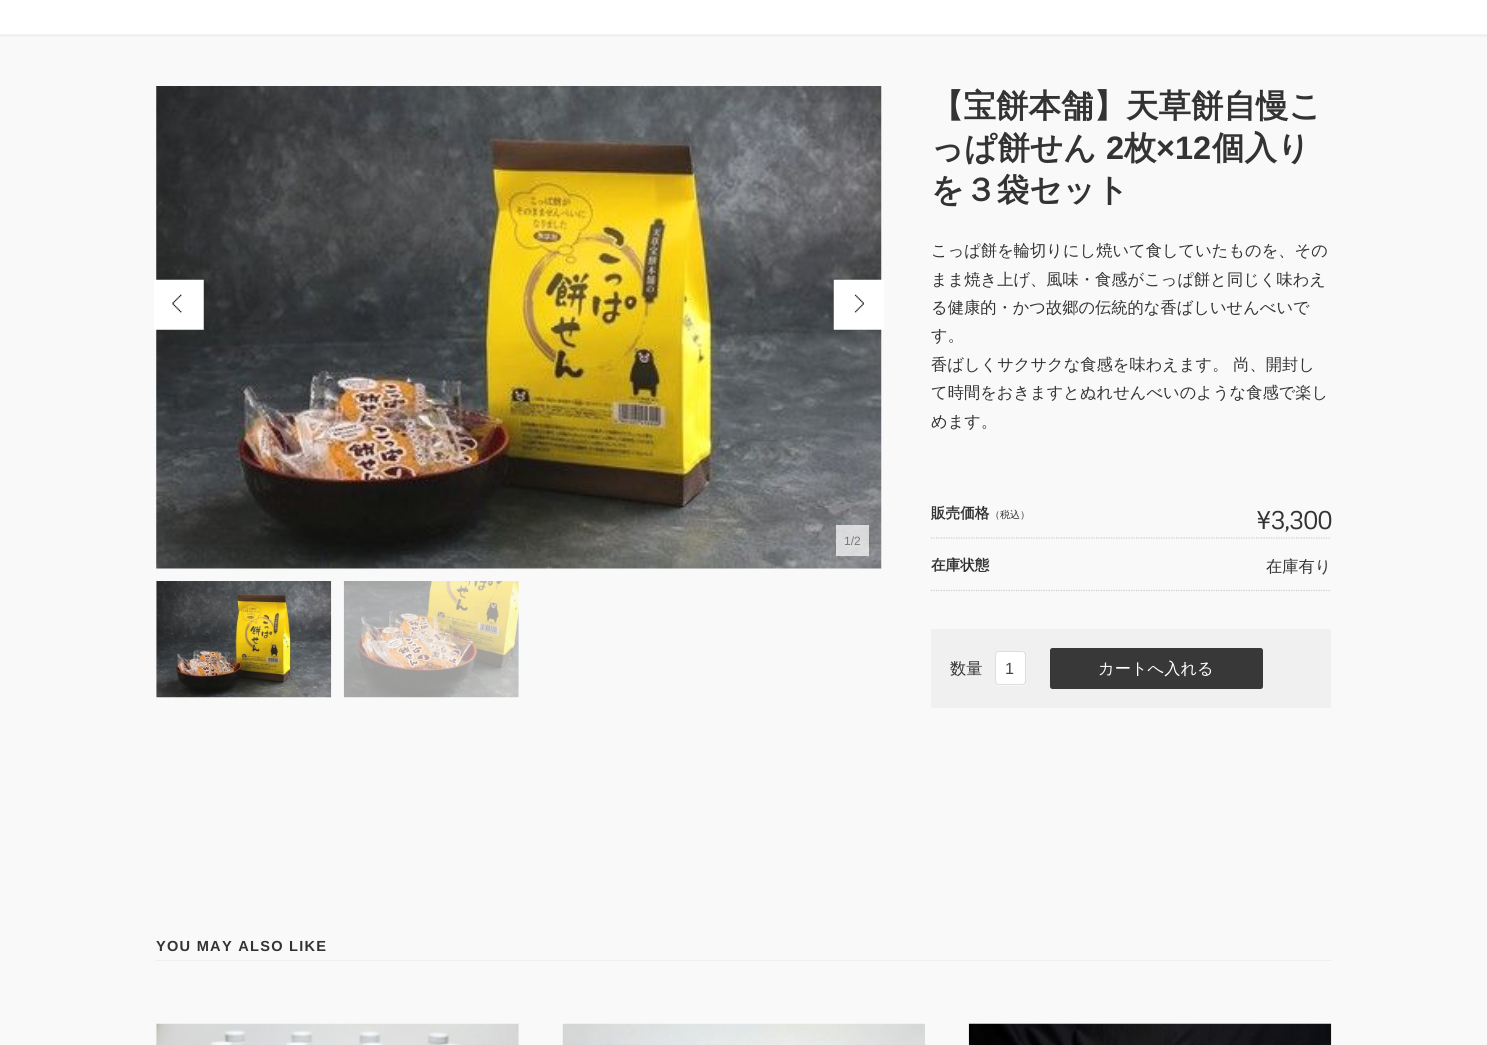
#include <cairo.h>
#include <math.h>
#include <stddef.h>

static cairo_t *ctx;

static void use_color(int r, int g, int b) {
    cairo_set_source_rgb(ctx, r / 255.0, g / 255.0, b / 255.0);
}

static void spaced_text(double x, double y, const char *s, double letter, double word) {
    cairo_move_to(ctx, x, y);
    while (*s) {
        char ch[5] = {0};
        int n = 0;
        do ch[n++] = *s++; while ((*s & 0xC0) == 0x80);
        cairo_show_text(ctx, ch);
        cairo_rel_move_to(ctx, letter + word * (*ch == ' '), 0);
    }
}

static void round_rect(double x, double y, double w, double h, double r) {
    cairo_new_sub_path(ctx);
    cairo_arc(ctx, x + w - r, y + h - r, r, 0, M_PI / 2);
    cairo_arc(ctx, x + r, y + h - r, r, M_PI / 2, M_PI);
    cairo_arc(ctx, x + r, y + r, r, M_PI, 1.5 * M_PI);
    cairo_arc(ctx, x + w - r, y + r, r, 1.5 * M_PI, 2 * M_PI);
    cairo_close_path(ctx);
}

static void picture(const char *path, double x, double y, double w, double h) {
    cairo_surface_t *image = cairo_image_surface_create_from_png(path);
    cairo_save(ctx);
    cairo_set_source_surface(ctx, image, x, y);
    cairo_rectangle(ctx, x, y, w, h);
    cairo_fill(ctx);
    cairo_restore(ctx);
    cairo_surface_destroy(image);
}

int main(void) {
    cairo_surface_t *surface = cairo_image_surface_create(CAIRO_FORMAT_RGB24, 1487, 1045);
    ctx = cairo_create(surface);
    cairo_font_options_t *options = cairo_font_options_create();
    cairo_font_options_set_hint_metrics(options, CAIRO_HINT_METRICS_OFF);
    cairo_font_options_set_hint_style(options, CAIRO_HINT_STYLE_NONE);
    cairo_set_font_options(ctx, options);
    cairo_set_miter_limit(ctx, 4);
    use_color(249, 249, 249);
    cairo_paint(ctx);
    use_color(255, 255, 255);
    cairo_rectangle(ctx, 0, 0, 1487, 34);
    cairo_fill(ctx);
    use_color(241, 241, 241);
    cairo_rectangle(ctx, 0, 34, 1487, 3);
    cairo_fill(ctx);
    picture("img1.png", 156, 86, 726, 483);
    picture("img2.png", 154, 279, 50, 51);
    picture("img3.png", 833, 279, 51, 51);
    cairo_set_source_rgba(ctx, 1, 1, 1, 0.7);
    cairo_rectangle(ctx, 836, 525, 33, 31);
    cairo_fill(ctx);
    cairo_select_font_face(ctx, "Liberation Sans", CAIRO_FONT_SLANT_NORMAL, CAIRO_FONT_WEIGHT_NORMAL);
    cairo_set_font_size(ctx, 12);
    use_color(119, 119, 119);
    cairo_move_to(ctx, 844, 545);
    cairo_show_text(ctx, "1/2");
    picture("img4.png", 156, 581, 176, 117);
    picture("img5.png", 343, 581, 176, 117);
    cairo_select_font_face(ctx, "WenQuanYi Zen Hei", CAIRO_FONT_SLANT_NORMAL, CAIRO_FONT_WEIGHT_BOLD);
    cairo_set_font_size(ctx, 32.5);
    use_color(51, 51, 51);
    cairo_move_to(ctx, 931, 117);
    cairo_show_text(ctx, "【宝餅本舗】天草餅自慢こ");
    cairo_move_to(ctx, 931, 159);
    cairo_show_text(ctx, "っぱ餅せん");
    cairo_select_font_face(ctx, "Liberation Sans", CAIRO_FONT_SLANT_NORMAL, CAIRO_FONT_WEIGHT_BOLD);
    cairo_move_to(ctx, 1106, 159);
    cairo_show_text(ctx, "2");
    cairo_select_font_face(ctx, "WenQuanYi Zen Hei", CAIRO_FONT_SLANT_NORMAL, CAIRO_FONT_WEIGHT_BOLD);
    cairo_move_to(ctx, 1124, 159);
    cairo_show_text(ctx, "枚");
    cairo_select_font_face(ctx, "Liberation Sans", CAIRO_FONT_SLANT_NORMAL, CAIRO_FONT_WEIGHT_BOLD);
    cairo_move_to(ctx, 1156, 159);
    cairo_show_text(ctx, "×12");
    cairo_select_font_face(ctx, "WenQuanYi Zen Hei", CAIRO_FONT_SLANT_NORMAL, CAIRO_FONT_WEIGHT_BOLD);
    cairo_move_to(ctx, 1212, 159);
    cairo_show_text(ctx, "個入り");
    cairo_move_to(ctx, 931, 201);
    cairo_show_text(ctx, "を３袋セット");
    cairo_select_font_face(ctx, "WenQuanYi Zen Hei Medium", CAIRO_FONT_SLANT_NORMAL, CAIRO_FONT_WEIGHT_NORMAL);
    cairo_set_font_size(ctx, 16.25);
    cairo_move_to(ctx, 931, 256);
    cairo_show_text(ctx, "こっぱ餅を輪切りにし焼いて食していたものを、その");
    cairo_move_to(ctx, 931, 285);
    cairo_show_text(ctx, "まま焼き上げ、風味・食感がこっぱ餅と同じく味わえ");
    cairo_move_to(ctx, 931, 313);
    cairo_show_text(ctx, "る健康的・かつ故郷の伝統的な香ばしいせんべいで");
    cairo_move_to(ctx, 931, 341);
    cairo_show_text(ctx, "す。");
    cairo_move_to(ctx, 931, 370);
    cairo_show_text(ctx, "香ばしくサクサクな食感を味わえます。 尚、開封し");
    cairo_move_to(ctx, 931, 398);
    cairo_show_text(ctx, "て時間をおきますとぬれせんべいのような食感で楽し");
    cairo_move_to(ctx, 931, 427);
    cairo_show_text(ctx, "めます。");
    cairo_new_path(ctx);
    cairo_move_to(ctx, 931, 538);
    cairo_line_to(ctx, 1331, 538);
    use_color(204, 204, 204);
    cairo_set_line_width(ctx, 1.2);
    cairo_set_dash(ctx, (double[]){1.25, 1.25}, 2, 0);
    cairo_stroke(ctx);
    cairo_select_font_face(ctx, "WenQuanYi Zen Hei", CAIRO_FONT_SLANT_NORMAL, CAIRO_FONT_WEIGHT_BOLD);
    cairo_set_font_size(ctx, 14.6);
    use_color(51, 51, 51);
    cairo_move_to(ctx, 931, 518);
    cairo_show_text(ctx, "販売価格");
    cairo_select_font_face(ctx, "WenQuanYi Zen Hei Medium", CAIRO_FONT_SLANT_NORMAL, CAIRO_FONT_WEIGHT_NORMAL);
    cairo_set_font_size(ctx, 10);
    cairo_move_to(ctx, 990, 518);
    cairo_show_text(ctx, "（税込）");
    cairo_select_font_face(ctx, "Sintony", CAIRO_FONT_SLANT_NORMAL, CAIRO_FONT_WEIGHT_NORMAL);
    cairo_set_font_size(ctx, 24.5);
    spaced_text(1256, 529, "¥3,300", -1.25, 0);
    cairo_new_path(ctx);
    cairo_move_to(ctx, 931, 590.5);
    cairo_line_to(ctx, 1331, 590.5);
    use_color(204, 204, 204);
    cairo_stroke(ctx);
    cairo_select_font_face(ctx, "WenQuanYi Zen Hei", CAIRO_FONT_SLANT_NORMAL, CAIRO_FONT_WEIGHT_BOLD);
    cairo_set_font_size(ctx, 14.6);
    use_color(51, 51, 51);
    cairo_move_to(ctx, 931, 570);
    cairo_show_text(ctx, "在庫状態");
    cairo_select_font_face(ctx, "WenQuanYi Zen Hei Medium", CAIRO_FONT_SLANT_NORMAL, CAIRO_FONT_WEIGHT_NORMAL);
    cairo_set_font_size(ctx, 16.25);
    cairo_move_to(ctx, 1266, 572);
    cairo_show_text(ctx, "在庫有り");
    use_color(240, 240, 241);
    cairo_rectangle(ctx, 931, 629, 400, 79);
    cairo_fill(ctx);
    use_color(51, 51, 51);
    cairo_move_to(ctx, 950, 674);
    cairo_show_text(ctx, "数量");
    use_color(248, 248, 248);
    cairo_new_path(ctx);
    cairo_move_to(ctx, 995, 681);
    cairo_line_to(ctx, 995, 682);
    cairo_curve_to(ctx, 995, 684, 997, 686, 999, 686);
    cairo_line_to(ctx, 1022, 686);
    cairo_curve_to(ctx, 1024, 686, 1025.5, 684.5, 1026, 683);
    cairo_curve_to(ctx, 1025.5, 684, 1024, 685, 1022.5, 685);
    cairo_line_to(ctx, 999, 685);
    cairo_curve_to(ctx, 996.5, 685, 995, 683.5, 995, 681);
    cairo_close_path(ctx);
    cairo_fill(ctx);
    use_color(255, 255, 255);
    round_rect(995.5, 651.5, 30, 33, 3.5);
    cairo_fill_preserve(ctx);
    use_color(221, 221, 221);
    cairo_set_line_width(ctx, 1);
    cairo_set_dash(ctx, NULL, 0, 0);
    cairo_stroke(ctx);
    cairo_select_font_face(ctx, "Liberation Sans", CAIRO_FONT_SLANT_NORMAL, CAIRO_FONT_WEIGHT_NORMAL);
    use_color(68, 68, 68);
    spaced_text(1005, 674, "1", 1.25, 0);
    use_color(56, 56, 56);
    round_rect(1050, 648, 213, 41, 2.5);
    cairo_fill(ctx);
    cairo_select_font_face(ctx, "WenQuanYi Zen Hei Medium", CAIRO_FONT_SLANT_NORMAL, CAIRO_FONT_WEIGHT_NORMAL);
    use_color(255, 255, 255);
    cairo_move_to(ctx, 1098, 674);
    cairo_show_text(ctx, "カートへ入れる");
    use_color(238, 238, 238);
    cairo_rectangle(ctx, 156, 960, 1175, 1);
    cairo_fill(ctx);
    cairo_select_font_face(ctx, "Liberation Sans", CAIRO_FONT_SLANT_NORMAL, CAIRO_FONT_WEIGHT_BOLD);
    cairo_set_font_size(ctx, 14.6);
    use_color(51, 51, 51);
    spaced_text(156, 951, "YOU MAY ALSO LIKE", 1.25, 0);
    picture("img6.png", 156, 1023, 363, 22);
    picture("img7.png", 562, 1023, 363, 22);
    picture("img8.png", 968, 1023, 364, 22);
    cairo_surface_write_to_png(surface, "result.png");
    cairo_font_options_destroy(options);
    cairo_destroy(ctx);
    cairo_surface_destroy(surface);
    return 0;
}
